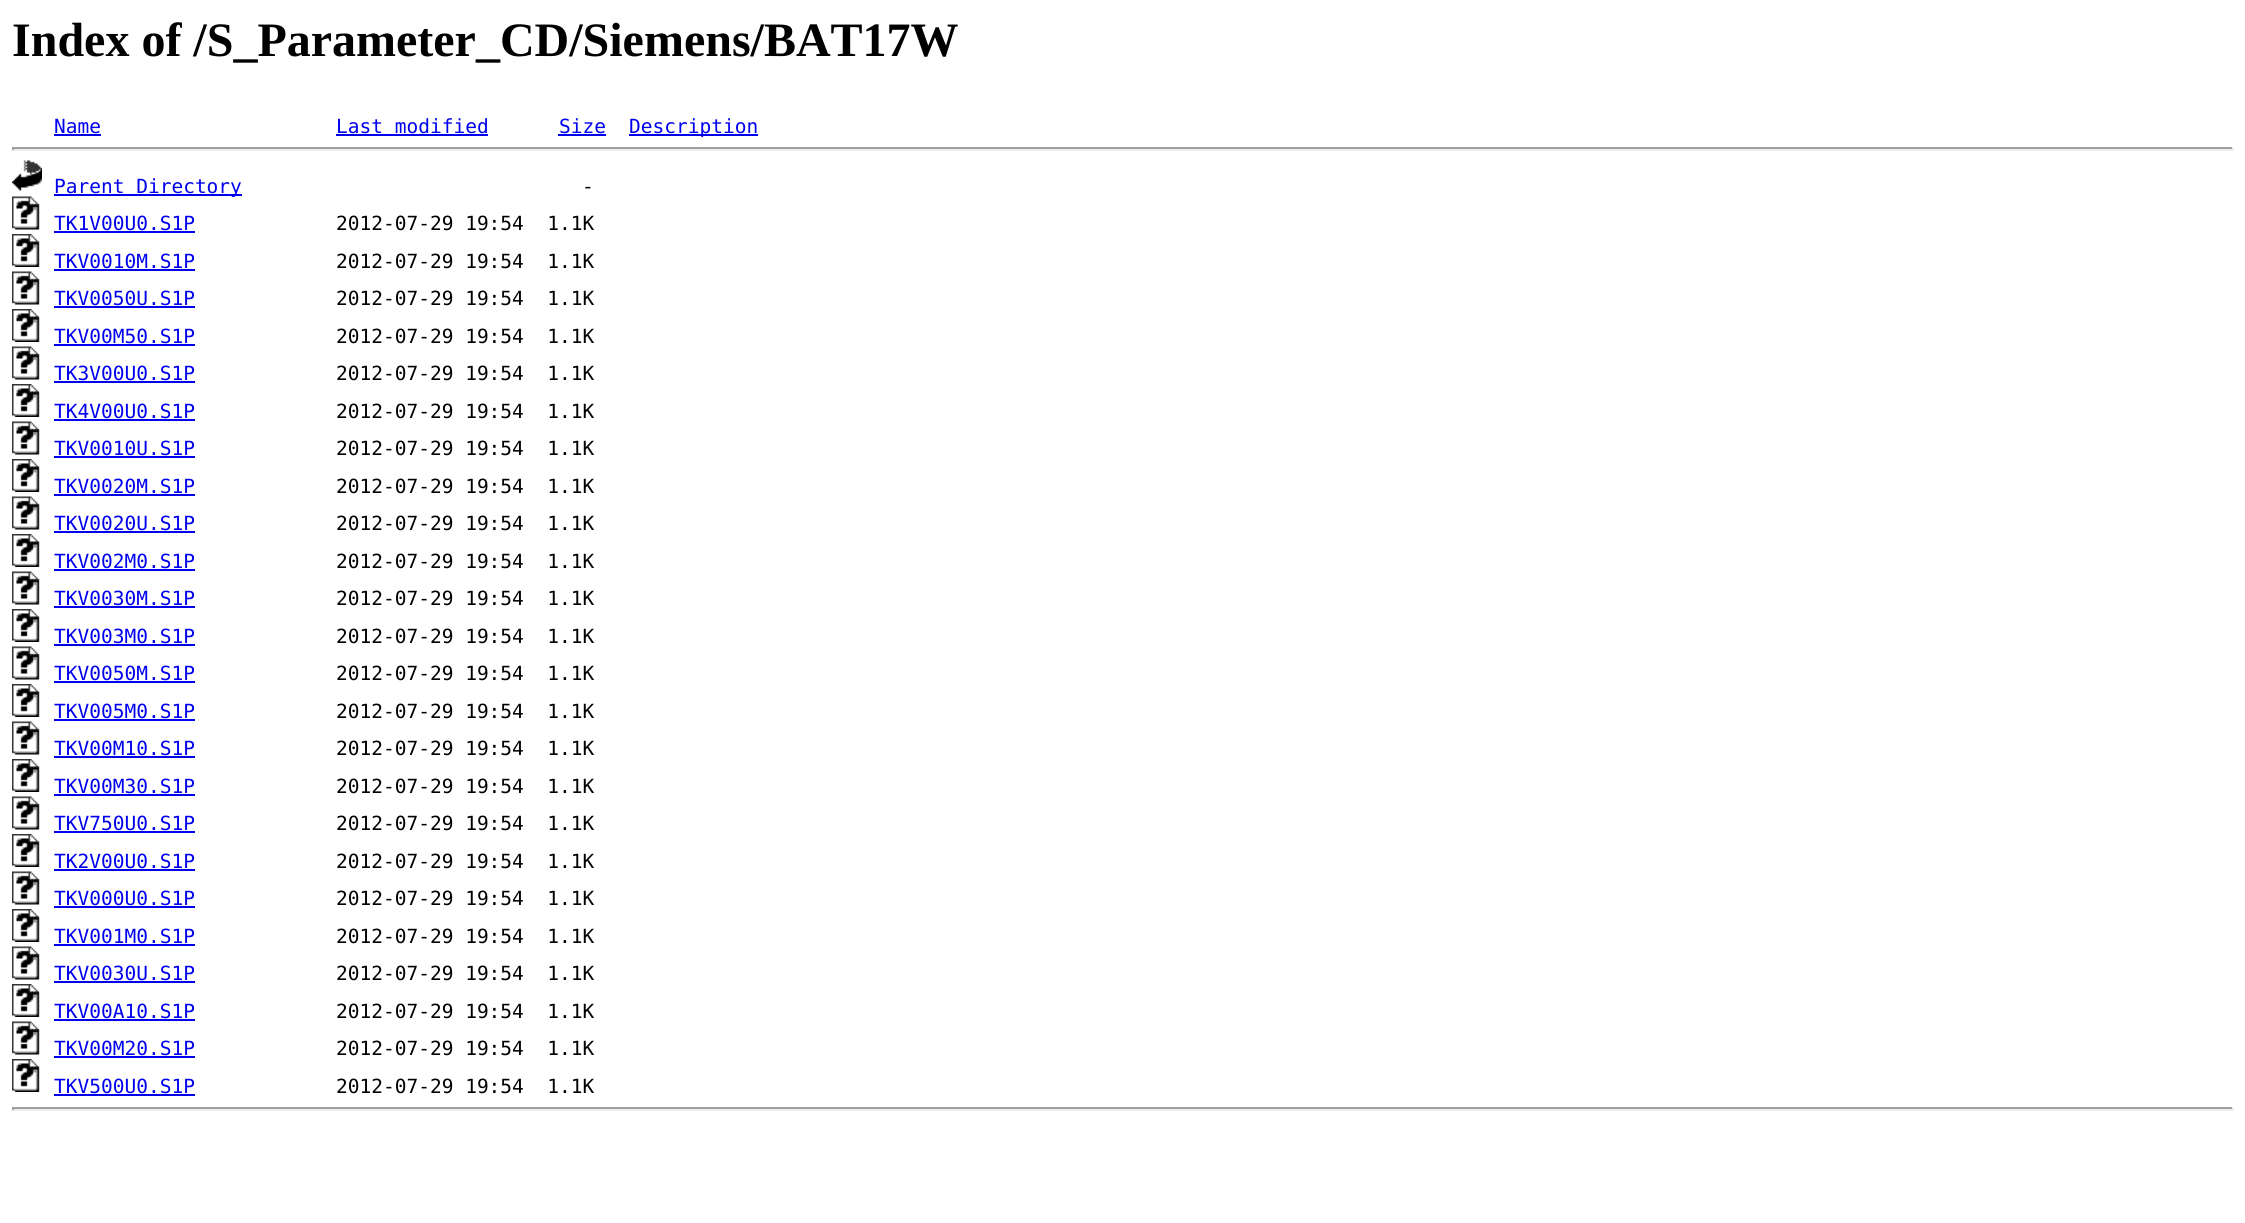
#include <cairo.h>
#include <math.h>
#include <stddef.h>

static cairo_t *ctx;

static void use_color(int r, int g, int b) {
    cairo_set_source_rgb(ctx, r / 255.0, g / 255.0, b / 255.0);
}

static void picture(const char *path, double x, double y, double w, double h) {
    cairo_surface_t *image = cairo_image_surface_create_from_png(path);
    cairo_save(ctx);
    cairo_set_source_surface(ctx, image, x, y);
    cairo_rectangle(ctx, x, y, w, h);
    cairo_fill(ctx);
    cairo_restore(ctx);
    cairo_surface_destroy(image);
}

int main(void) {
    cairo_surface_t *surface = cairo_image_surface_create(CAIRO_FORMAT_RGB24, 2245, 1223);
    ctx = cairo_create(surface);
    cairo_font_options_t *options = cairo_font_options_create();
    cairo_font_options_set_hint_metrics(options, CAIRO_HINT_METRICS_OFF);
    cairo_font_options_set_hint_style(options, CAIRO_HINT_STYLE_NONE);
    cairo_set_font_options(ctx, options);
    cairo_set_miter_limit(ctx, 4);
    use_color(255, 255, 255);
    cairo_paint(ctx);
    cairo_select_font_face(ctx, "Liberation Serif", CAIRO_FONT_SLANT_NORMAL, CAIRO_FONT_WEIGHT_BOLD);
    cairo_set_font_size(ctx, 48);
    use_color(0, 0, 0);
    cairo_move_to(ctx, 12, 56);
    cairo_show_text(ctx, "Index of /S_Parameter_CD/Siemens/BAT17W");
    cairo_select_font_face(ctx, "DejaVu Sans Mono", CAIRO_FONT_SLANT_NORMAL, CAIRO_FONT_WEIGHT_NORMAL);
    cairo_set_font_size(ctx, 19.5);
    use_color(0, 0, 238);
    cairo_move_to(ctx, 54, 133);
    cairo_show_text(ctx, "Name");
    cairo_rectangle(ctx, 54, 134, 47, 2);
    cairo_fill(ctx);
    cairo_move_to(ctx, 336, 133);
    cairo_show_text(ctx, "Last modified");
    cairo_rectangle(ctx, 336, 134, 152, 2);
    cairo_fill(ctx);
    cairo_move_to(ctx, 559, 133);
    cairo_show_text(ctx, "Size");
    cairo_rectangle(ctx, 558, 134, 48, 2);
    cairo_fill(ctx);
    cairo_rectangle(ctx, 629, 134, 129, 2);
    cairo_fill(ctx);
    cairo_move_to(ctx, 629, 133);
    cairo_show_text(ctx, "Description");
    use_color(159, 159, 159);
    cairo_rectangle(ctx, 12, 147, 2222, 2);
    cairo_fill(ctx);
    use_color(238, 238, 238);
    cairo_rectangle(ctx, 2232, 147, 2, 3);
    cairo_fill(ctx);
    cairo_rectangle(ctx, 12, 149, 2222, 2);
    cairo_fill(ctx);
    use_color(159, 159, 159);
    cairo_rectangle(ctx, 12, 147, 2, 3);
    cairo_fill(ctx);
    picture("img1.png", 12, 160, 30, 31);
    use_color(0, 0, 238);
    cairo_rectangle(ctx, 54, 194, 188, 2);
    cairo_fill(ctx);
    cairo_move_to(ctx, 54, 193);
    cairo_show_text(ctx, "Parent Directory");
    use_color(0, 0, 0);
    cairo_move_to(ctx, 582, 193);
    cairo_show_text(ctx, "-");
    picture("img2.png", 12, 196, 28, 34);
    use_color(0, 0, 238);
    cairo_move_to(ctx, 54, 230);
    cairo_show_text(ctx, "TK1V00U0.S1P");
    cairo_rectangle(ctx, 54, 231, 141, 2);
    cairo_fill(ctx);
    use_color(0, 0, 0);
    cairo_move_to(ctx, 336, 230);
    cairo_show_text(ctx, "2012-07-29 19:54  1.1K");
    picture("img3.png", 12, 234, 28, 33);
    use_color(0, 0, 238);
    cairo_move_to(ctx, 54, 268);
    cairo_show_text(ctx, "TKV0010M.S1P");
    cairo_rectangle(ctx, 54, 269, 141, 2);
    cairo_fill(ctx);
    use_color(0, 0, 0);
    cairo_move_to(ctx, 336, 268);
    cairo_show_text(ctx, "2012-07-29 19:54  1.1K");
    picture("img2.png", 12, 271, 28, 34);
    use_color(0, 0, 238);
    cairo_move_to(ctx, 54, 305);
    cairo_show_text(ctx, "TKV0050U.S1P");
    cairo_rectangle(ctx, 54, 306, 141, 2);
    cairo_fill(ctx);
    use_color(0, 0, 0);
    cairo_move_to(ctx, 336, 305);
    cairo_show_text(ctx, "2012-07-29 19:54  1.1K");
    picture("img3.png", 12, 309, 28, 33);
    use_color(0, 0, 238);
    cairo_move_to(ctx, 54, 343);
    cairo_show_text(ctx, "TKV00M50.S1P");
    cairo_rectangle(ctx, 54, 344, 141, 2);
    cairo_fill(ctx);
    use_color(0, 0, 0);
    cairo_move_to(ctx, 336, 343);
    cairo_show_text(ctx, "2012-07-29 19:54  1.1K");
    picture("img2.png", 12, 346, 28, 34);
    use_color(0, 0, 238);
    cairo_move_to(ctx, 54, 380);
    cairo_show_text(ctx, "TK3V00U0.S1P");
    cairo_rectangle(ctx, 54, 381, 141, 2);
    cairo_fill(ctx);
    use_color(0, 0, 0);
    cairo_move_to(ctx, 336, 380);
    cairo_show_text(ctx, "2012-07-29 19:54  1.1K");
    picture("img3.png", 12, 384, 28, 33);
    use_color(0, 0, 238);
    cairo_move_to(ctx, 54, 418);
    cairo_show_text(ctx, "TK4V00U0.S1P");
    cairo_rectangle(ctx, 54, 419, 141, 2);
    cairo_fill(ctx);
    use_color(0, 0, 0);
    cairo_move_to(ctx, 336, 418);
    cairo_show_text(ctx, "2012-07-29 19:54  1.1K");
    picture("img2.png", 12, 421, 28, 34);
    use_color(0, 0, 238);
    cairo_move_to(ctx, 54, 455);
    cairo_show_text(ctx, "TKV0010U.S1P");
    cairo_rectangle(ctx, 54, 456, 141, 2);
    cairo_fill(ctx);
    use_color(0, 0, 0);
    cairo_move_to(ctx, 336, 455);
    cairo_show_text(ctx, "2012-07-29 19:54  1.1K");
    picture("img3.png", 12, 459, 28, 33);
    use_color(0, 0, 238);
    cairo_move_to(ctx, 54, 493);
    cairo_show_text(ctx, "TKV0020M.S1P");
    cairo_rectangle(ctx, 54, 494, 141, 2);
    cairo_fill(ctx);
    use_color(0, 0, 0);
    cairo_move_to(ctx, 336, 493);
    cairo_show_text(ctx, "2012-07-29 19:54  1.1K");
    picture("img2.png", 12, 496, 28, 34);
    use_color(0, 0, 238);
    cairo_move_to(ctx, 54, 530);
    cairo_show_text(ctx, "TKV0020U.S1P");
    cairo_rectangle(ctx, 54, 531, 141, 2);
    cairo_fill(ctx);
    use_color(0, 0, 0);
    cairo_move_to(ctx, 336, 530);
    cairo_show_text(ctx, "2012-07-29 19:54  1.1K");
    picture("img3.png", 12, 534, 28, 33);
    use_color(0, 0, 238);
    cairo_move_to(ctx, 54, 568);
    cairo_show_text(ctx, "TKV002M0.S1P");
    cairo_rectangle(ctx, 54, 569, 141, 2);
    cairo_fill(ctx);
    use_color(0, 0, 0);
    cairo_move_to(ctx, 336, 568);
    cairo_show_text(ctx, "2012-07-29 19:54  1.1K");
    picture("img2.png", 12, 571, 28, 34);
    use_color(0, 0, 238);
    cairo_move_to(ctx, 54, 605);
    cairo_show_text(ctx, "TKV0030M.S1P");
    cairo_rectangle(ctx, 54, 606, 141, 2);
    cairo_fill(ctx);
    use_color(0, 0, 0);
    cairo_move_to(ctx, 336, 605);
    cairo_show_text(ctx, "2012-07-29 19:54  1.1K");
    picture("img3.png", 12, 609, 28, 33);
    use_color(0, 0, 238);
    cairo_move_to(ctx, 54, 643);
    cairo_show_text(ctx, "TKV003M0.S1P");
    cairo_rectangle(ctx, 54, 644, 141, 2);
    cairo_fill(ctx);
    use_color(0, 0, 0);
    cairo_move_to(ctx, 336, 643);
    cairo_show_text(ctx, "2012-07-29 19:54  1.1K");
    picture("img2.png", 12, 646, 28, 34);
    use_color(0, 0, 238);
    cairo_move_to(ctx, 54, 680);
    cairo_show_text(ctx, "TKV0050M.S1P");
    cairo_rectangle(ctx, 54, 681, 141, 2);
    cairo_fill(ctx);
    use_color(0, 0, 0);
    cairo_move_to(ctx, 336, 680);
    cairo_show_text(ctx, "2012-07-29 19:54  1.1K");
    picture("img3.png", 12, 684, 28, 33);
    use_color(0, 0, 238);
    cairo_move_to(ctx, 54, 718);
    cairo_show_text(ctx, "TKV005M0.S1P");
    cairo_rectangle(ctx, 54, 719, 141, 2);
    cairo_fill(ctx);
    use_color(0, 0, 0);
    cairo_move_to(ctx, 336, 718);
    cairo_show_text(ctx, "2012-07-29 19:54  1.1K");
    picture("img2.png", 12, 721, 28, 34);
    use_color(0, 0, 238);
    cairo_move_to(ctx, 54, 755);
    cairo_show_text(ctx, "TKV00M10.S1P");
    cairo_rectangle(ctx, 54, 756, 141, 2);
    cairo_fill(ctx);
    use_color(0, 0, 0);
    cairo_move_to(ctx, 336, 755);
    cairo_show_text(ctx, "2012-07-29 19:54  1.1K");
    picture("img3.png", 12, 759, 28, 33);
    use_color(0, 0, 238);
    cairo_move_to(ctx, 54, 793);
    cairo_show_text(ctx, "TKV00M30.S1P");
    cairo_rectangle(ctx, 54, 794, 141, 2);
    cairo_fill(ctx);
    use_color(0, 0, 0);
    cairo_move_to(ctx, 336, 793);
    cairo_show_text(ctx, "2012-07-29 19:54  1.1K");
    picture("img2.png", 12, 796, 28, 34);
    use_color(0, 0, 238);
    cairo_move_to(ctx, 54, 830);
    cairo_show_text(ctx, "TKV750U0.S1P");
    cairo_rectangle(ctx, 54, 831, 141, 2);
    cairo_fill(ctx);
    use_color(0, 0, 0);
    cairo_move_to(ctx, 336, 830);
    cairo_show_text(ctx, "2012-07-29 19:54  1.1K");
    picture("img3.png", 12, 834, 28, 33);
    use_color(0, 0, 238);
    cairo_move_to(ctx, 54, 868);
    cairo_show_text(ctx, "TK2V00U0.S1P");
    cairo_rectangle(ctx, 54, 869, 141, 2);
    cairo_fill(ctx);
    use_color(0, 0, 0);
    cairo_move_to(ctx, 336, 868);
    cairo_show_text(ctx, "2012-07-29 19:54  1.1K");
    picture("img2.png", 12, 871, 28, 34);
    use_color(0, 0, 238);
    cairo_move_to(ctx, 54, 905);
    cairo_show_text(ctx, "TKV000U0.S1P");
    cairo_rectangle(ctx, 54, 906, 141, 2);
    cairo_fill(ctx);
    use_color(0, 0, 0);
    cairo_move_to(ctx, 336, 905);
    cairo_show_text(ctx, "2012-07-29 19:54  1.1K");
    picture("img3.png", 12, 909, 28, 33);
    use_color(0, 0, 238);
    cairo_move_to(ctx, 54, 943);
    cairo_show_text(ctx, "TKV001M0.S1P");
    cairo_rectangle(ctx, 54, 944, 141, 2);
    cairo_fill(ctx);
    use_color(0, 0, 0);
    cairo_move_to(ctx, 336, 943);
    cairo_show_text(ctx, "2012-07-29 19:54  1.1K");
    picture("img2.png", 12, 946, 28, 34);
    use_color(0, 0, 238);
    cairo_move_to(ctx, 54, 980);
    cairo_show_text(ctx, "TKV0030U.S1P");
    cairo_rectangle(ctx, 54, 981, 141, 2);
    cairo_fill(ctx);
    use_color(0, 0, 0);
    cairo_move_to(ctx, 336, 980);
    cairo_show_text(ctx, "2012-07-29 19:54  1.1K");
    picture("img3.png", 12, 984, 28, 33);
    use_color(0, 0, 238);
    cairo_move_to(ctx, 54, 1018);
    cairo_show_text(ctx, "TKV00A10.S1P");
    cairo_rectangle(ctx, 54, 1019, 141, 2);
    cairo_fill(ctx);
    use_color(0, 0, 0);
    cairo_move_to(ctx, 336, 1018);
    cairo_show_text(ctx, "2012-07-29 19:54  1.1K");
    picture("img2.png", 12, 1021, 28, 34);
    use_color(0, 0, 238);
    cairo_move_to(ctx, 54, 1055);
    cairo_show_text(ctx, "TKV00M20.S1P");
    cairo_rectangle(ctx, 54, 1056, 141, 2);
    cairo_fill(ctx);
    use_color(0, 0, 0);
    cairo_move_to(ctx, 336, 1055);
    cairo_show_text(ctx, "2012-07-29 19:54  1.1K");
    picture("img3.png", 12, 1059, 28, 33);
    use_color(0, 0, 238);
    cairo_move_to(ctx, 54, 1093);
    cairo_show_text(ctx, "TKV500U0.S1P");
    cairo_rectangle(ctx, 54, 1094, 141, 2);
    cairo_fill(ctx);
    use_color(0, 0, 0);
    cairo_move_to(ctx, 336, 1093);
    cairo_show_text(ctx, "2012-07-29 19:54  1.1K");
    use_color(159, 159, 159);
    cairo_rectangle(ctx, 12, 1107, 2222, 2);
    cairo_fill(ctx);
    use_color(238, 238, 238);
    cairo_rectangle(ctx, 2232, 1107, 2, 3);
    cairo_fill(ctx);
    cairo_rectangle(ctx, 12, 1109, 2222, 2);
    cairo_fill(ctx);
    use_color(159, 159, 159);
    cairo_rectangle(ctx, 12, 1107, 2, 3);
    cairo_fill(ctx);
    cairo_surface_write_to_png(surface, "result.png");
    cairo_font_options_destroy(options);
    cairo_destroy(ctx);
    cairo_surface_destroy(surface);
    return 0;
}
